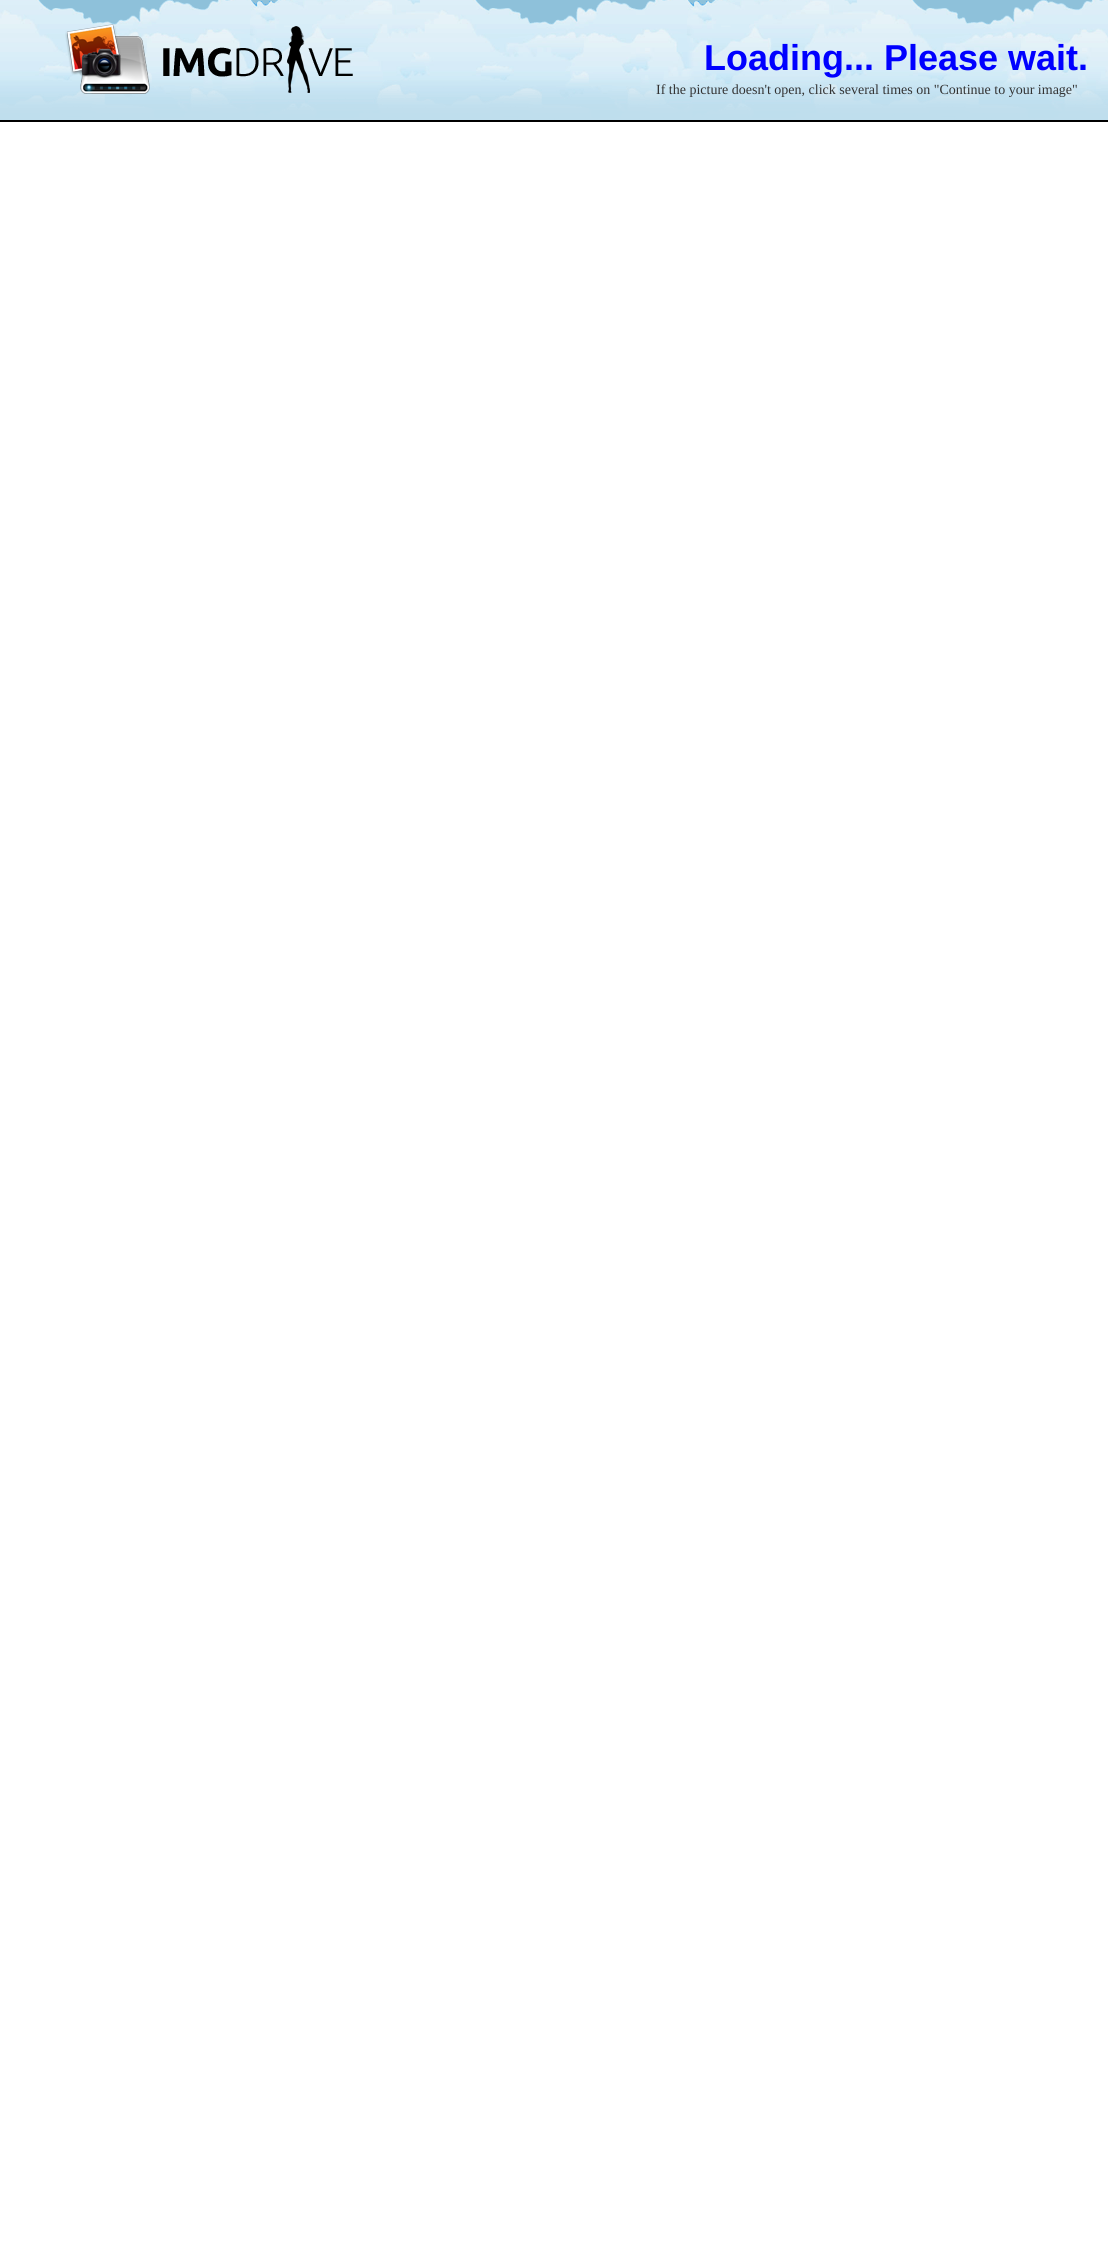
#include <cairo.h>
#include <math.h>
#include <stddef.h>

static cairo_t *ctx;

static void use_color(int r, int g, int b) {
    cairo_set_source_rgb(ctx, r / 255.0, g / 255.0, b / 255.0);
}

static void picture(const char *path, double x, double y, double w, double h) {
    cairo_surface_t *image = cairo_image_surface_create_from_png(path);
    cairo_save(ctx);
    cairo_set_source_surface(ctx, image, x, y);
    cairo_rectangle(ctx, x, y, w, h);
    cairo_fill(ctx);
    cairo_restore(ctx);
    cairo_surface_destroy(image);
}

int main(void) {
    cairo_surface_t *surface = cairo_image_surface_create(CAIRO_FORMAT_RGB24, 1108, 2258);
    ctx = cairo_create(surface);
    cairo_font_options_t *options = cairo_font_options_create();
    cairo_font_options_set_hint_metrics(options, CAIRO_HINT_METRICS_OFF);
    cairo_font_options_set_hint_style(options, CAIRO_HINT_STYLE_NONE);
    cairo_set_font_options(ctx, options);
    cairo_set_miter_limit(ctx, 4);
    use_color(255, 255, 255);
    cairo_paint(ctx);
    picture("img1.png", 0, 0, 1108, 120);
    picture("img2.png", 65, 24, 288, 70);
    cairo_select_font_face(ctx, "Liberation Sans", CAIRO_FONT_SLANT_NORMAL, CAIRO_FONT_WEIGHT_BOLD);
    cairo_set_font_size(ctx, 36);
    use_color(0, 0, 255);
    cairo_move_to(ctx, 704, 70);
    cairo_show_text(ctx, "Loading... Please wait.");
    cairo_select_font_face(ctx, "Liberation Serif", CAIRO_FONT_SLANT_NORMAL, CAIRO_FONT_WEIGHT_NORMAL);
    cairo_set_font_size(ctx, 14);
    use_color(51, 51, 51);
    cairo_move_to(ctx, 656, 94);
    cairo_show_text(ctx, "If the picture doesn't open, click several times on \"Continue to your image\"");
    use_color(0, 0, 0);
    cairo_rectangle(ctx, 0, 120, 1108, 2);
    cairo_fill(ctx);
    cairo_surface_write_to_png(surface, "result.png");
    cairo_font_options_destroy(options);
    cairo_destroy(ctx);
    cairo_surface_destroy(surface);
    return 0;
}
